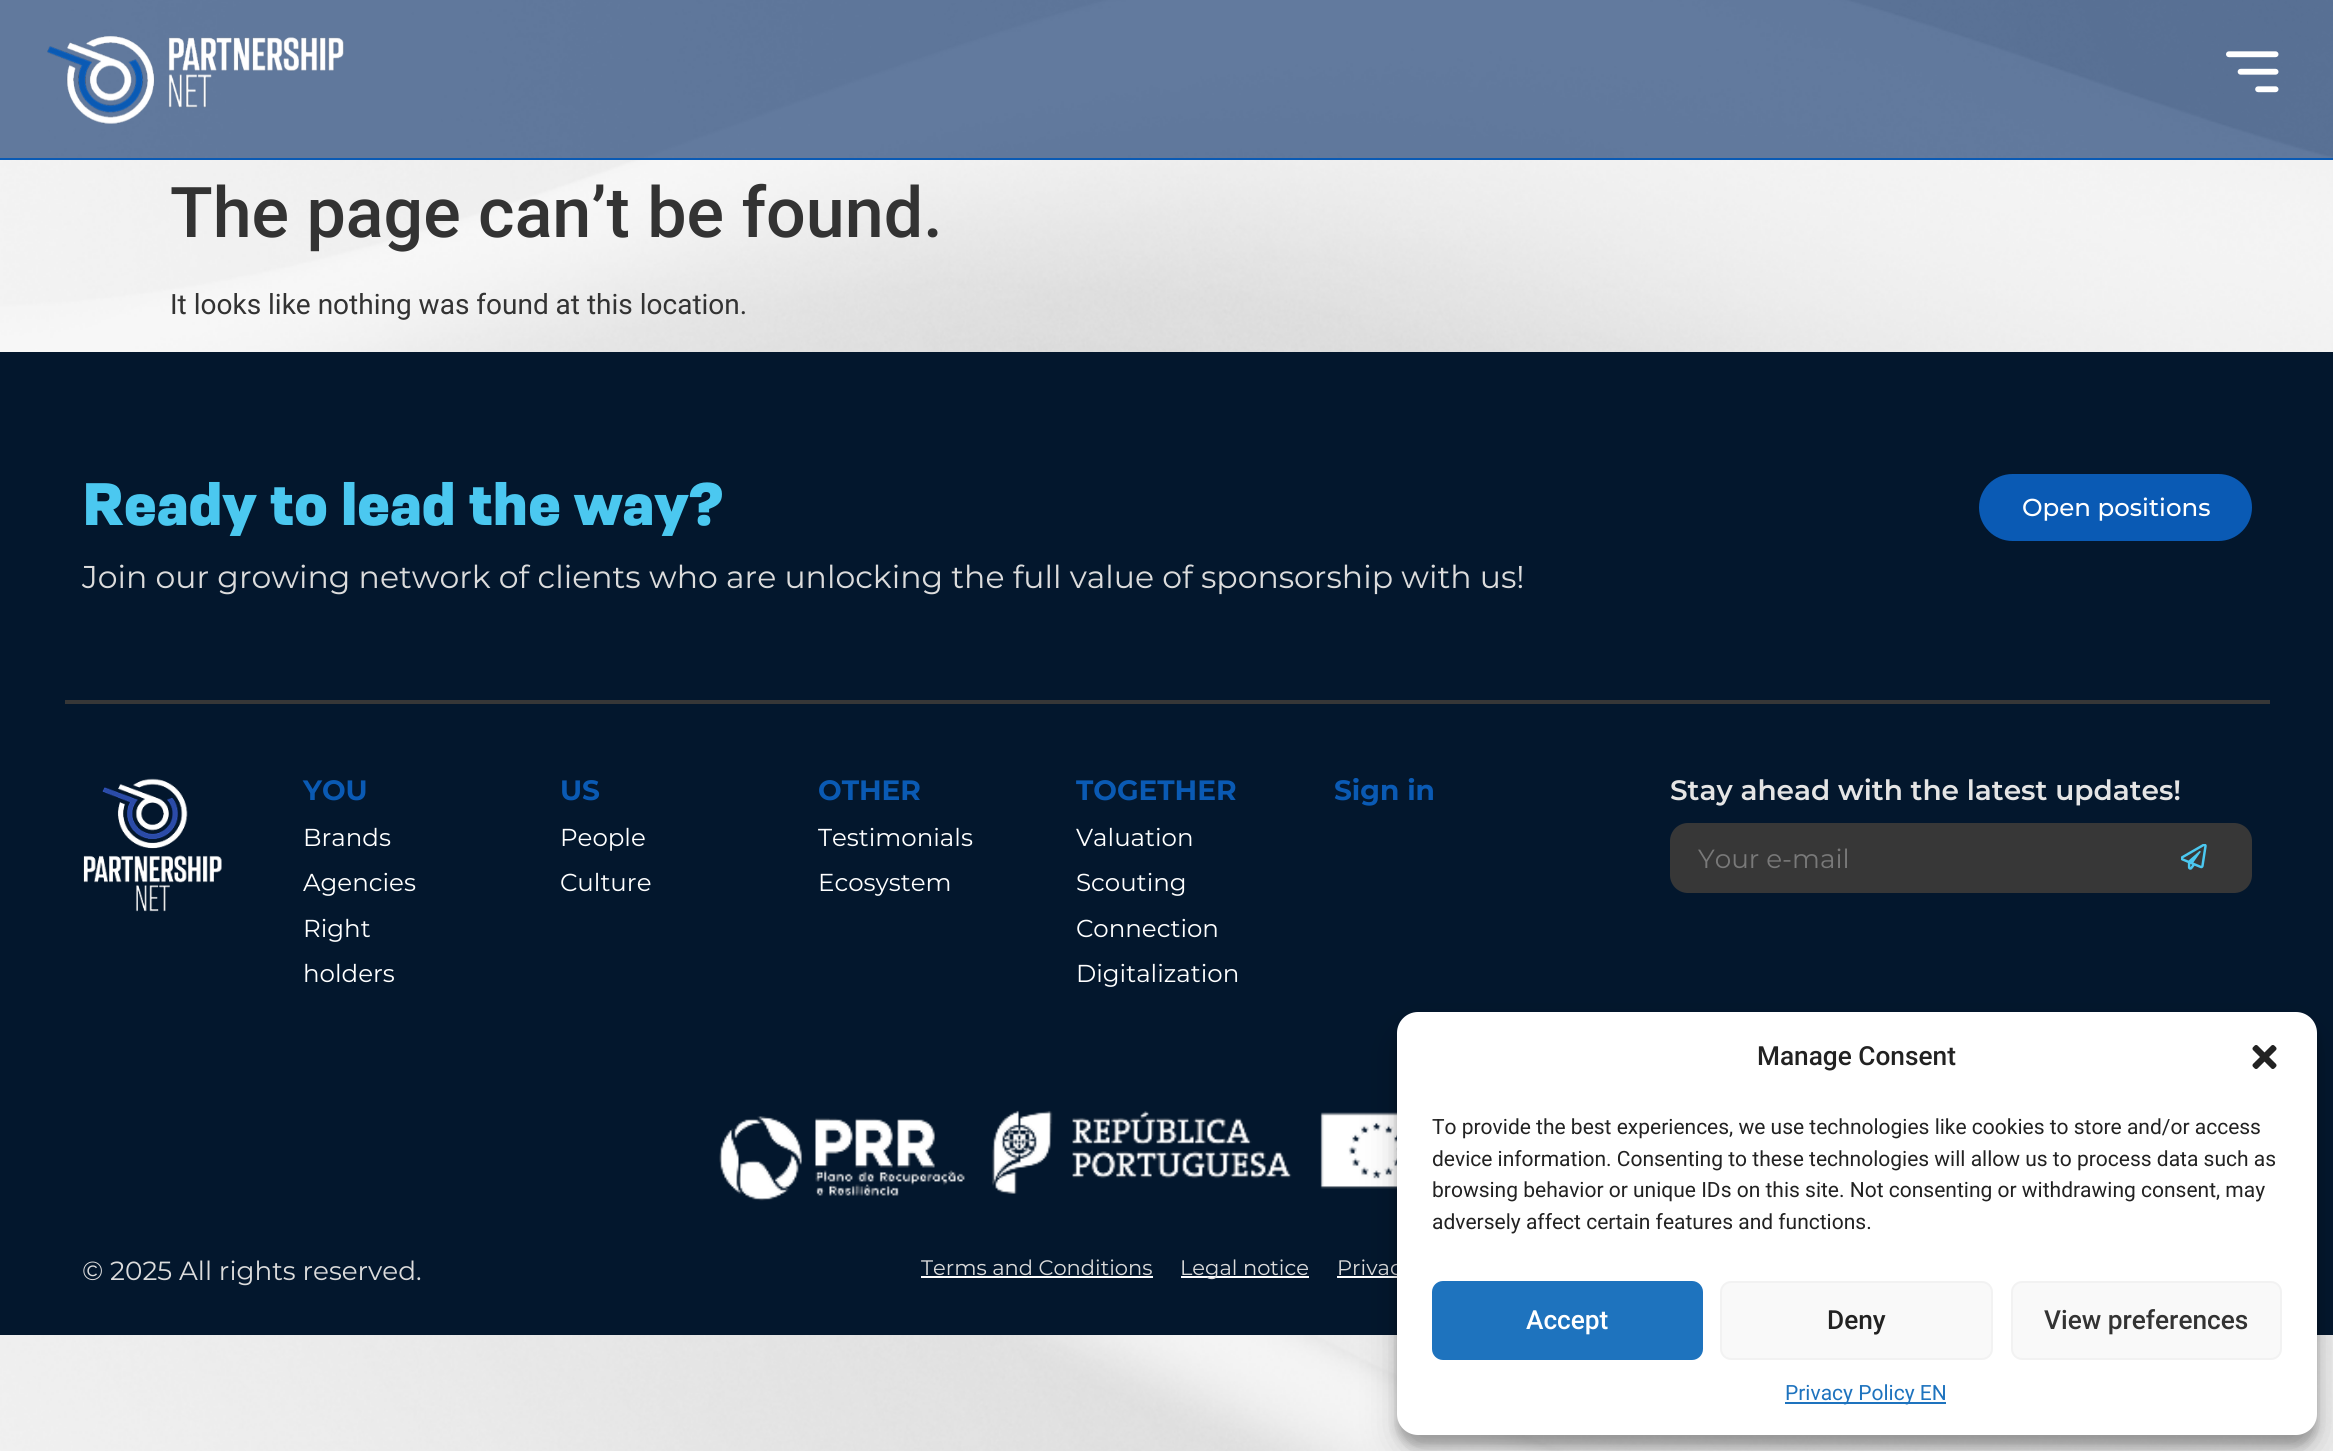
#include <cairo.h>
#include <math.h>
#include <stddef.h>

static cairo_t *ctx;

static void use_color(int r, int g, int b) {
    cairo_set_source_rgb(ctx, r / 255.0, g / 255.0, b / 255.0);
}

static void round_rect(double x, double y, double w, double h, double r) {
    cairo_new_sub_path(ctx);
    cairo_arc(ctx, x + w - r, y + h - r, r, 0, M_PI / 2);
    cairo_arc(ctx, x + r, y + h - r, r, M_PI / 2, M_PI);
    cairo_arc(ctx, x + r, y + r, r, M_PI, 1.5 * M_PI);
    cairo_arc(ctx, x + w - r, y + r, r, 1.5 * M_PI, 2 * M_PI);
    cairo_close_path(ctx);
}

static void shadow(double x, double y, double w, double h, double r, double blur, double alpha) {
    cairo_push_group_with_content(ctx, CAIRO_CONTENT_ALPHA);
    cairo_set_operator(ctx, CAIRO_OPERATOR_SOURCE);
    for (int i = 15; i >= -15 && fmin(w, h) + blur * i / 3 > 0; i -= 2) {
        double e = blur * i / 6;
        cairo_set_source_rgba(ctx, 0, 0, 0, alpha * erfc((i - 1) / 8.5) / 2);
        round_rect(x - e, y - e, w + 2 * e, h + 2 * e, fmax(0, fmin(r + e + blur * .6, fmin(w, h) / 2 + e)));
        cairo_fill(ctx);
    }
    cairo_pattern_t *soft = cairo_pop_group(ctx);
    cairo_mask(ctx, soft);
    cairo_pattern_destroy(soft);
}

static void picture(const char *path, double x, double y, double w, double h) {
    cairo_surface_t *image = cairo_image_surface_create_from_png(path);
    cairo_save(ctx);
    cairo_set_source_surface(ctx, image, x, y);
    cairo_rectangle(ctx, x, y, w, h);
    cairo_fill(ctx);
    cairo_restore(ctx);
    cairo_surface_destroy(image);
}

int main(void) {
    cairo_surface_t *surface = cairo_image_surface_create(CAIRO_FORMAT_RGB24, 2333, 1451);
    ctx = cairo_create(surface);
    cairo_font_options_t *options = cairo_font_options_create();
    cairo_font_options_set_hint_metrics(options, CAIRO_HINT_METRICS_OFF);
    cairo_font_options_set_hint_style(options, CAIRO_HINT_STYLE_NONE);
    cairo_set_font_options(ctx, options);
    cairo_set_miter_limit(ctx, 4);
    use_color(255, 255, 255);
    cairo_paint(ctx);
    picture("img1.png", 0, 0, 2333, 1451);
    cairo_set_source_rgba(ctx, 0, 0.157, 0.392, 0.6);
    cairo_rectangle(ctx, 0, 0, 2333, 158);
    cairo_fill(ctx);
    use_color(10, 90, 180);
    cairo_rectangle(ctx, 0, 158, 2333, 2);
    cairo_fill(ctx);
    picture("img2.png", 47, 36, 297, 88);
    picture("img3.png", 2226, 51, 53, 42);
    cairo_select_font_face(ctx, "Roboto Medium", CAIRO_FONT_SLANT_NORMAL, CAIRO_FONT_WEIGHT_NORMAL);
    cairo_set_font_size(ctx, 70);
    use_color(51, 51, 51);
    cairo_move_to(ctx, 170, 237);
    cairo_show_text(ctx, "The page can’t be found.");
    cairo_select_font_face(ctx, "Roboto", CAIRO_FONT_SLANT_NORMAL, CAIRO_FONT_WEIGHT_NORMAL);
    cairo_set_font_size(ctx, 28);
    cairo_move_to(ctx, 170, 314);
    cairo_show_text(ctx, "It looks like nothing was found at this location.");
    use_color(3, 23, 45);
    cairo_rectangle(ctx, 0, 352, 2333, 983);
    cairo_fill(ctx);
    cairo_select_font_face(ctx, "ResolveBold", CAIRO_FONT_SLANT_NORMAL, CAIRO_FONT_WEIGHT_BOLD);
    cairo_set_font_size(ctx, 63);
    use_color(75, 200, 240);
    cairo_move_to(ctx, 82, 525);
    cairo_show_text(ctx, "Ready to lead the way?");
    cairo_select_font_face(ctx, "Montserrat", CAIRO_FONT_SLANT_NORMAL, CAIRO_FONT_WEIGHT_NORMAL);
    cairo_set_font_size(ctx, 31.5);
    use_color(220, 220, 220);
    cairo_move_to(ctx, 82, 588);
    cairo_show_text(ctx, "Join our growing network of clients who are unlocking the full value of sponsorship with us!");
    use_color(10, 90, 180);
    round_rect(1979, 474, 273, 67, 33.5);
    cairo_fill(ctx);
    cairo_select_font_face(ctx, "Montserrat Medium", CAIRO_FONT_SLANT_NORMAL, CAIRO_FONT_WEIGHT_NORMAL);
    cairo_set_font_size(ctx, 24.5);
    use_color(255, 255, 255);
    cairo_move_to(ctx, 2022, 516);
    cairo_show_text(ctx, "Open positions");
    use_color(55, 55, 55);
    cairo_rectangle(ctx, 65, 700, 2205, 4);
    cairo_fill(ctx);
    picture("img4.png", 83, 778, 139, 134);
    cairo_select_font_face(ctx, "Montserrat", CAIRO_FONT_SLANT_NORMAL, CAIRO_FONT_WEIGHT_BOLD);
    cairo_set_font_size(ctx, 28);
    use_color(10, 90, 180);
    cairo_move_to(ctx, 303, 800);
    cairo_show_text(ctx, "YOU");
    cairo_select_font_face(ctx, "Montserrat", CAIRO_FONT_SLANT_NORMAL, CAIRO_FONT_WEIGHT_NORMAL);
    cairo_set_font_size(ctx, 24.5);
    use_color(255, 255, 255);
    cairo_move_to(ctx, 303, 846);
    cairo_show_text(ctx, "Brands");
    cairo_move_to(ctx, 303, 891);
    cairo_show_text(ctx, "Agencies");
    cairo_move_to(ctx, 303, 937);
    cairo_show_text(ctx, "Right");
    cairo_move_to(ctx, 303, 982);
    cairo_show_text(ctx, "holders");
    cairo_select_font_face(ctx, "Montserrat", CAIRO_FONT_SLANT_NORMAL, CAIRO_FONT_WEIGHT_BOLD);
    cairo_set_font_size(ctx, 28);
    use_color(10, 90, 180);
    cairo_move_to(ctx, 560, 800);
    cairo_show_text(ctx, "US");
    cairo_select_font_face(ctx, "Montserrat", CAIRO_FONT_SLANT_NORMAL, CAIRO_FONT_WEIGHT_NORMAL);
    cairo_set_font_size(ctx, 24.5);
    use_color(255, 255, 255);
    cairo_move_to(ctx, 560, 846);
    cairo_show_text(ctx, "People");
    cairo_move_to(ctx, 560, 891);
    cairo_show_text(ctx, "Culture");
    cairo_select_font_face(ctx, "Montserrat", CAIRO_FONT_SLANT_NORMAL, CAIRO_FONT_WEIGHT_BOLD);
    cairo_set_font_size(ctx, 28);
    use_color(10, 90, 180);
    cairo_move_to(ctx, 818, 800);
    cairo_show_text(ctx, "OTHER");
    cairo_select_font_face(ctx, "Montserrat", CAIRO_FONT_SLANT_NORMAL, CAIRO_FONT_WEIGHT_NORMAL);
    cairo_set_font_size(ctx, 24.5);
    use_color(255, 255, 255);
    cairo_move_to(ctx, 818, 846);
    cairo_show_text(ctx, "Testimonials");
    cairo_move_to(ctx, 818, 891);
    cairo_show_text(ctx, "Ecosystem");
    cairo_select_font_face(ctx, "Montserrat", CAIRO_FONT_SLANT_NORMAL, CAIRO_FONT_WEIGHT_BOLD);
    cairo_set_font_size(ctx, 28);
    use_color(10, 90, 180);
    cairo_move_to(ctx, 1076, 800);
    cairo_show_text(ctx, "TOGETHER");
    cairo_select_font_face(ctx, "Montserrat", CAIRO_FONT_SLANT_NORMAL, CAIRO_FONT_WEIGHT_NORMAL);
    cairo_set_font_size(ctx, 24.5);
    use_color(255, 255, 255);
    cairo_move_to(ctx, 1076, 846);
    cairo_show_text(ctx, "Valuation");
    cairo_move_to(ctx, 1076, 891);
    cairo_show_text(ctx, "Scouting");
    cairo_move_to(ctx, 1076, 937);
    cairo_show_text(ctx, "Connection");
    cairo_move_to(ctx, 1076, 982);
    cairo_show_text(ctx, "Digitalization");
    cairo_select_font_face(ctx, "Montserrat", CAIRO_FONT_SLANT_NORMAL, CAIRO_FONT_WEIGHT_BOLD);
    cairo_set_font_size(ctx, 28);
    use_color(10, 90, 180);
    cairo_move_to(ctx, 1334, 800);
    cairo_show_text(ctx, "Sign in");
    cairo_select_font_face(ctx, "Montserrat SemiBold", CAIRO_FONT_SLANT_NORMAL, CAIRO_FONT_WEIGHT_NORMAL);
    use_color(229, 229, 229);
    cairo_move_to(ctx, 1670, 800);
    cairo_show_text(ctx, "Stay ahead with the latest updates!");
    use_color(55, 55, 55);
    cairo_new_path(ctx);
    cairo_move_to(ctx, 1688, 823);
    cairo_line_to(ctx, 2135, 823);
    cairo_line_to(ctx, 2135, 893);
    cairo_line_to(ctx, 1688, 893);
    cairo_curve_to(ctx, 1678, 893, 1670, 885, 1670, 875);
    cairo_line_to(ctx, 1670, 841);
    cairo_curve_to(ctx, 1670, 831, 1678, 823, 1688, 823);
    cairo_close_path(ctx);
    cairo_fill(ctx);
    cairo_select_font_face(ctx, "Montserrat", CAIRO_FONT_SLANT_NORMAL, CAIRO_FONT_WEIGHT_NORMAL);
    cairo_set_font_size(ctx, 26.25);
    use_color(121, 121, 121);
    cairo_move_to(ctx, 1698, 868);
    cairo_show_text(ctx, "Your e-mail");
    use_color(55, 55, 55);
    cairo_new_path(ctx);
    cairo_move_to(ctx, 2135, 823);
    cairo_line_to(ctx, 2234, 823);
    cairo_curve_to(ctx, 2244, 823, 2252, 831, 2252, 841);
    cairo_line_to(ctx, 2252, 875);
    cairo_curve_to(ctx, 2252, 885, 2244, 893, 2234, 893);
    cairo_line_to(ctx, 2135, 893);
    cairo_close_path(ctx);
    cairo_fill(ctx);
    picture("img5.png", 2181, 844, 26, 26);
    use_color(220, 220, 220);
    cairo_move_to(ctx, 82, 1280);
    cairo_show_text(ctx, "© 2025 All rights reserved.");
    picture("img6.png", 719, 1110, 678, 91);
    cairo_set_font_size(ctx, 21);
    cairo_move_to(ctx, 921, 1275);
    cairo_show_text(ctx, "Terms and Conditions");
    use_color(255, 255, 255);
    cairo_rectangle(ctx, 921, 1276, 232, 2);
    cairo_fill(ctx);
    cairo_rectangle(ctx, 1181, 1276, 128, 2);
    cairo_fill(ctx);
    use_color(220, 220, 220);
    cairo_move_to(ctx, 1180, 1275);
    cairo_show_text(ctx, "Legal notice");
    cairo_move_to(ctx, 1337, 1275);
    cairo_show_text(ctx, "Privac");
    use_color(255, 255, 255);
    cairo_rectangle(ctx, 1337, 1276, 60, 2);
    cairo_fill(ctx);
    use_color(0, 0, 0);
    shadow(1397, 1022, 920, 424, 21, 5, 0.23);
    shadow(1397, 1029, 920, 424, 21, 17.5, 0.19);
    use_color(255, 255, 255);
    round_rect(1397, 1012, 920, 423, 21);
    cairo_fill(ctx);
    cairo_select_font_face(ctx, "Roboto Medium", CAIRO_FONT_SLANT_NORMAL, CAIRO_FONT_WEIGHT_NORMAL);
    cairo_set_font_size(ctx, 26.25);
    use_color(34, 34, 34);
    cairo_move_to(ctx, 1757, 1065);
    cairo_show_text(ctx, "Manage Consent");
    picture("img7.png", 2252, 1045, 25, 24);
    cairo_select_font_face(ctx, "Roboto", CAIRO_FONT_SLANT_NORMAL, CAIRO_FONT_WEIGHT_NORMAL);
    cairo_set_font_size(ctx, 21);
    cairo_move_to(ctx, 1432, 1134);
    cairo_show_text(ctx, "To provide the best experiences, we use technologies like cookies to store and/or access");
    cairo_move_to(ctx, 1432, 1166);
    cairo_show_text(ctx, "device information. Consenting to these technologies will allow us to process data such as");
    cairo_move_to(ctx, 1432, 1197);
    cairo_show_text(ctx, "browsing behavior or unique IDs on this site. Not consenting or withdrawing consent, may");
    cairo_move_to(ctx, 1432, 1229);
    cairo_show_text(ctx, "adversely affect certain features and functions.");
    use_color(30, 115, 190);
    round_rect(1433, 1282, 269, 77, 10);
    cairo_fill_preserve(ctx);
    cairo_stroke(ctx);
    cairo_select_font_face(ctx, "Roboto Medium", CAIRO_FONT_SLANT_NORMAL, CAIRO_FONT_WEIGHT_NORMAL);
    cairo_set_font_size(ctx, 26.25);
    use_color(255, 255, 255);
    cairo_move_to(ctx, 1526, 1329);
    cairo_show_text(ctx, "Accept");
    use_color(249, 249, 249);
    round_rect(1721, 1282, 271, 77, 10);
    cairo_fill_preserve(ctx);
    use_color(242, 242, 242);
    cairo_stroke(ctx);
    use_color(34, 34, 34);
    cairo_move_to(ctx, 1827, 1329);
    cairo_show_text(ctx, "Deny");
    use_color(249, 249, 249);
    round_rect(2012, 1282, 269, 77, 10);
    cairo_fill_preserve(ctx);
    use_color(242, 242, 242);
    cairo_stroke(ctx);
    use_color(51, 51, 51);
    cairo_move_to(ctx, 2044, 1329);
    cairo_show_text(ctx, "View preferences");
    use_color(30, 115, 190);
    cairo_rectangle(ctx, 1785, 1402, 161, 2);
    cairo_fill(ctx);
    cairo_select_font_face(ctx, "Roboto", CAIRO_FONT_SLANT_NORMAL, CAIRO_FONT_WEIGHT_NORMAL);
    cairo_set_font_size(ctx, 21);
    cairo_move_to(ctx, 1785, 1400);
    cairo_show_text(ctx, "Privacy Policy EN");
    cairo_surface_write_to_png(surface, "result.png");
    cairo_font_options_destroy(options);
    cairo_destroy(ctx);
    cairo_surface_destroy(surface);
    return 0;
}
